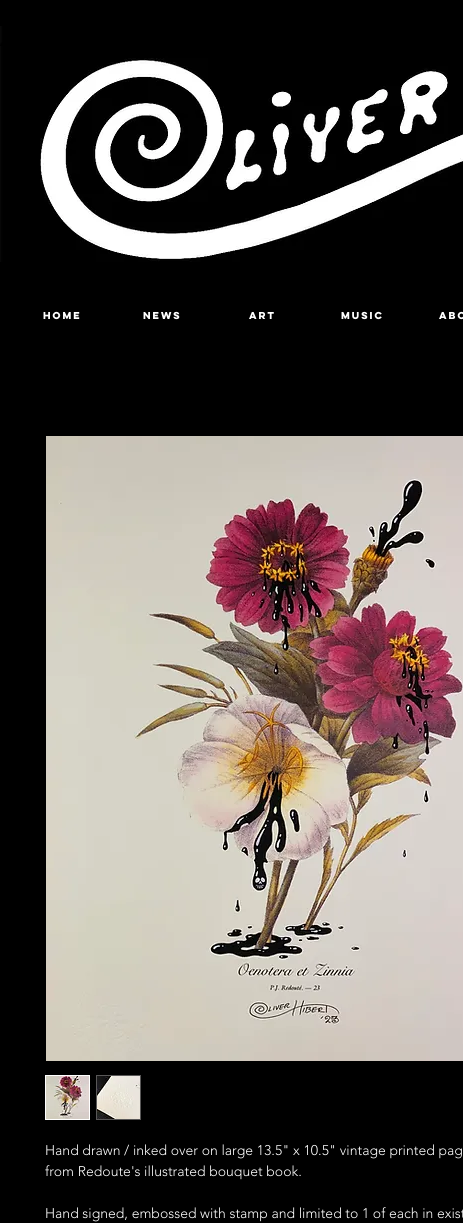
#include <cairo.h>
#include <math.h>
#include <stddef.h>

static cairo_t *ctx;

static void use_color(int r, int g, int b) {
    cairo_set_source_rgb(ctx, r / 255.0, g / 255.0, b / 255.0);
}

static void picture(const char *path, double x, double y, double w, double h) {
    cairo_surface_t *image = cairo_image_surface_create_from_png(path);
    cairo_save(ctx);
    cairo_set_source_surface(ctx, image, x, y);
    cairo_rectangle(ctx, x, y, w, h);
    cairo_fill(ctx);
    cairo_restore(ctx);
    cairo_surface_destroy(image);
}

int main(void) {
    cairo_surface_t *surface = cairo_image_surface_create(CAIRO_FORMAT_RGB24, 463, 1223);
    ctx = cairo_create(surface);
    cairo_font_options_t *options = cairo_font_options_create();
    cairo_font_options_set_hint_metrics(options, CAIRO_HINT_METRICS_OFF);
    cairo_font_options_set_hint_style(options, CAIRO_HINT_STYLE_NONE);
    cairo_set_font_options(ctx, options);
    cairo_set_miter_limit(ctx, 4);
    use_color(0, 0, 0);
    cairo_paint(ctx);
    picture("img1.png", 0, 26, 463, 236);
    cairo_select_font_face(ctx, "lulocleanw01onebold", CAIRO_FONT_SLANT_NORMAL, CAIRO_FONT_WEIGHT_BOLD);
    cairo_set_font_size(ctx, 9);
    use_color(255, 255, 255);
    cairo_move_to(ctx, 43, 319);
    cairo_show_text(ctx, "Home");
    cairo_move_to(ctx, 143, 319);
    cairo_show_text(ctx, "NEWS");
    cairo_move_to(ctx, 249, 319);
    cairo_show_text(ctx, "ART");
    cairo_move_to(ctx, 341, 319);
    cairo_show_text(ctx, "MUSIC");
    cairo_move_to(ctx, 439, 319);
    cairo_show_text(ctx, "Abo");
    picture("img2.png", 46, 436, 417, 625);
    cairo_rectangle(ctx, 45.5, 1075.5, 44, 44);
    cairo_set_line_width(ctx, 1);
    cairo_stroke(ctx);
    picture("img3.png", 46, 1076, 43, 43);
    use_color(89, 88, 88);
    cairo_rectangle(ctx, 96, 1075, 45, 45);
    cairo_fill(ctx);
    picture("img4.png", 97, 1076, 43, 43);
    cairo_select_font_face(ctx, "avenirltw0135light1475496 Light", CAIRO_FONT_SLANT_NORMAL, CAIRO_FONT_WEIGHT_NORMAL);
    cairo_set_font_size(ctx, 14);
    use_color(255, 255, 255);
    cairo_move_to(ctx, 45, 1155);
    cairo_show_text(ctx, "Hand drawn / inked over on large 13.5\" x 10.5\" vintage printed pag");
    cairo_move_to(ctx, 45, 1176);
    cairo_show_text(ctx, "from Redoute's illustrated bouquet book.");
    cairo_move_to(ctx, 45, 1218);
    cairo_show_text(ctx, "Hand signed, embossed with stamp and limited to 1 of each in exist");
    cairo_surface_write_to_png(surface, "result.png");
    cairo_font_options_destroy(options);
    cairo_destroy(ctx);
    cairo_surface_destroy(surface);
    return 0;
}
